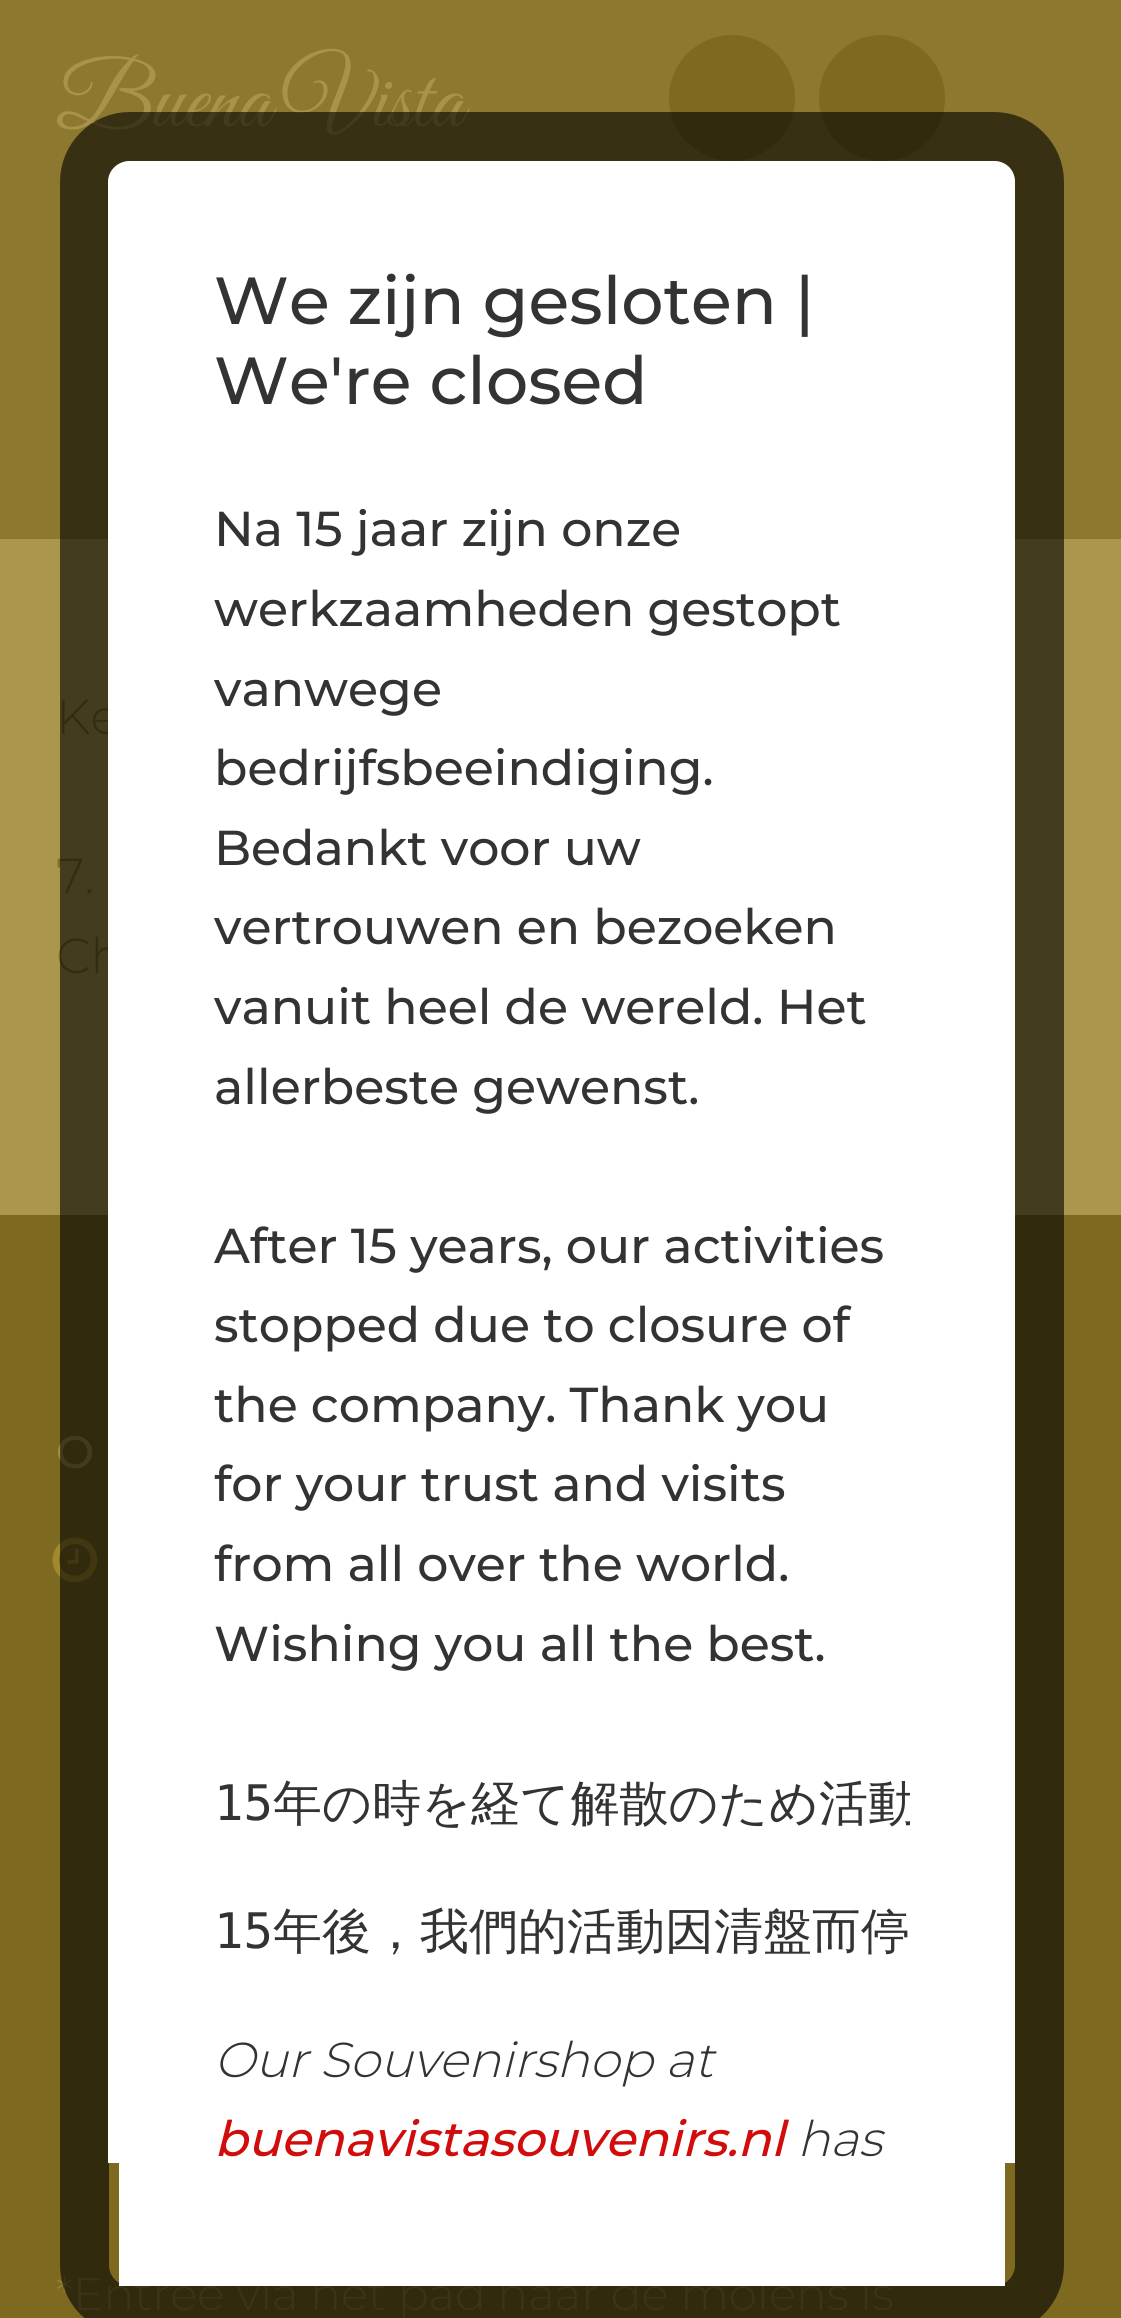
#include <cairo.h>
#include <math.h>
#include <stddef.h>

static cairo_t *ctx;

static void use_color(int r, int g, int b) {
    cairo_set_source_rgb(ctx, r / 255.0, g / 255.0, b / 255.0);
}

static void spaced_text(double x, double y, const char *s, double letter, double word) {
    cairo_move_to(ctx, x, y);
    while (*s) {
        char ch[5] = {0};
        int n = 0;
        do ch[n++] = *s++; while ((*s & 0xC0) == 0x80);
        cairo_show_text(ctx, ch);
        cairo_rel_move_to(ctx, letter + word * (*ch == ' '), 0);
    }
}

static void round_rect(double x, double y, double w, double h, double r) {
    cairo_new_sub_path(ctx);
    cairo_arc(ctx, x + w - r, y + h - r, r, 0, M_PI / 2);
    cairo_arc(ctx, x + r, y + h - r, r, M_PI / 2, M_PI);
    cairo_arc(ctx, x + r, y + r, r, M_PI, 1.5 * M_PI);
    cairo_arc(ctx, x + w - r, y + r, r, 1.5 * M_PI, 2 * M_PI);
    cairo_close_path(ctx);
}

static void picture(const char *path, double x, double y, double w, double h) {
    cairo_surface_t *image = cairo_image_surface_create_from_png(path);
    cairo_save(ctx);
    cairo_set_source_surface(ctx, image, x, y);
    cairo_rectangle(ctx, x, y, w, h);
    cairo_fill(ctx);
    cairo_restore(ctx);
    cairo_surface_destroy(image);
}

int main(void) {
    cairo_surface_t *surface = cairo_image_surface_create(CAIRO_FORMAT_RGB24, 1121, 2318);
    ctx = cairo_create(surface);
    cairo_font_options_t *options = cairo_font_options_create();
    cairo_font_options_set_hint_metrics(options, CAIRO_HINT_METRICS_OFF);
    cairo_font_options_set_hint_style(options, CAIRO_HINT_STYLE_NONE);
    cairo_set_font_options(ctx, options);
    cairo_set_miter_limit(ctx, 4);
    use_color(170, 150, 77);
    cairo_paint(ctx);
    use_color(140, 120, 47);
    cairo_rectangle(ctx, 0, 0, 1121, 539);
    cairo_fill(ctx);
    cairo_select_font_face(ctx, "Great Vibes", CAIRO_FONT_SLANT_NORMAL, CAIRO_FONT_WEIGHT_NORMAL);
    cairo_set_font_size(ctx, 91);
    use_color(167, 147, 74);
    spaced_text(56, 126, "Buena Vista", 0, -3);
    use_color(125, 105, 32);
    cairo_new_path(ctx);
    cairo_arc(ctx, 732, 98, 63, 0, 2 * M_PI);
    cairo_fill(ctx);
    cairo_arc(ctx, 882, 98, 63, 0, 2 * M_PI);
    cairo_fill(ctx);
    cairo_select_font_face(ctx, "Montserrat Light", CAIRO_FONT_SLANT_NORMAL, CAIRO_FONT_WEIGHT_NORMAL);
    cairo_set_font_size(ctx, 49);
    use_color(129, 109, 37);
    cairo_move_to(ctx, 56, 734);
    cairo_show_text(ctx, "Ke");
    cairo_move_to(ctx, 56, 893);
    cairo_show_text(ctx, "7.");
    cairo_move_to(ctx, 56, 973);
    cairo_show_text(ctx, "Ch");
    use_color(125, 105, 32);
    cairo_rectangle(ctx, 0, 1215, 1121, 1103);
    cairo_fill(ctx);
    cairo_select_font_face(ctx, "Montserrat Medium", CAIRO_FONT_SLANT_NORMAL, CAIRO_FONT_WEIGHT_NORMAL);
    cairo_set_font_size(ctx, 45.5);
    use_color(167, 147, 74);
    spaced_text(56, 1468, "O", 5, 0);
    picture("img1.png", 52, 1537, 46, 46);
    cairo_select_font_face(ctx, "Montserrat Light", CAIRO_FONT_SLANT_NORMAL, CAIRO_FONT_WEIGHT_NORMAL);
    use_color(150, 130, 57);
    cairo_move_to(ctx, 56, 2310);
    cairo_show_text(ctx, "*Entree via het pad naar de molens is");
    round_rect(84.5, 136.5, 955, 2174, 45.5);
    cairo_set_source_rgba(ctx, 0, 0, 0, 0.6);
    cairo_set_line_width(ctx, 49);
    cairo_stroke(ctx);
    use_color(255, 255, 255);
    cairo_new_path(ctx);
    cairo_move_to(ctx, 130, 161);
    cairo_line_to(ctx, 994, 161);
    cairo_curve_to(ctx, 1006, 161, 1015, 170, 1015, 182);
    cairo_line_to(ctx, 1015, 2163);
    cairo_line_to(ctx, 108, 2163);
    cairo_line_to(ctx, 108, 182);
    cairo_curve_to(ctx, 108, 170, 118, 161, 130, 161);
    cairo_close_path(ctx);
    cairo_fill(ctx);
    cairo_rectangle(ctx, 119, 2163, 886, 123);
    cairo_fill(ctx);
    cairo_select_font_face(ctx, "Montserrat Medium", CAIRO_FONT_SLANT_NORMAL, CAIRO_FONT_WEIGHT_NORMAL);
    cairo_set_font_size(ctx, 66.5);
    use_color(51, 51, 51);
    cairo_move_to(ctx, 214, 324);
    cairo_show_text(ctx, "We zijn gesloten |");
    cairo_move_to(ctx, 214, 404);
    cairo_show_text(ctx, "We're closed");
    cairo_set_font_size(ctx, 49);
    cairo_move_to(ctx, 214, 546);
    cairo_show_text(ctx, "Na 15 jaar zijn onze");
    cairo_move_to(ctx, 214, 626);
    cairo_show_text(ctx, "werkzaamheden gestopt");
    cairo_move_to(ctx, 214, 706);
    cairo_show_text(ctx, "vanwege");
    cairo_move_to(ctx, 214, 785);
    cairo_show_text(ctx, "bedrijfsbeeindiging.");
    cairo_move_to(ctx, 214, 865);
    cairo_show_text(ctx, "Bedankt voor uw");
    cairo_move_to(ctx, 214, 944);
    cairo_show_text(ctx, "vertrouwen en bezoeken");
    cairo_move_to(ctx, 214, 1024);
    cairo_show_text(ctx, "vanuit heel de wereld. Het");
    cairo_move_to(ctx, 214, 1104);
    cairo_show_text(ctx, "allerbeste gewenst.");
    cairo_move_to(ctx, 214, 1263);
    cairo_show_text(ctx, "After 15 years, our activities");
    cairo_move_to(ctx, 214, 1342);
    cairo_show_text(ctx, "stopped due to closure of");
    cairo_move_to(ctx, 214, 1422);
    cairo_show_text(ctx, "the company. Thank you");
    cairo_move_to(ctx, 214, 1501);
    cairo_show_text(ctx, "for your trust and visits");
    cairo_move_to(ctx, 214, 1581);
    cairo_show_text(ctx, "from all over the world.");
    cairo_move_to(ctx, 214, 1661);
    cairo_show_text(ctx, "Wishing you all the best.");
    cairo_select_font_face(ctx, "DejaVu Sans Mono", CAIRO_FONT_SLANT_NORMAL, CAIRO_FONT_WEIGHT_NORMAL);
    cairo_move_to(ctx, 214, 1820);
    cairo_show_text(ctx, "15");
    cairo_save(ctx);
    cairo_rectangle(ctx, 214, 266, 696, 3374);
    cairo_clip(ctx);
    cairo_select_font_face(ctx, "WenQuanYi Zen Hei Medium", CAIRO_FONT_SLANT_NORMAL, CAIRO_FONT_WEIGHT_NORMAL);
    cairo_move_to(ctx, 273, 1820);
    cairo_show_text(ctx, "年の時を経て解散のため活動");
    cairo_restore(ctx);
    cairo_move_to(ctx, 214, 1948);
    cairo_show_text(ctx, "15");
    cairo_select_font_face(ctx, "WenQuanYi Zen Hei Medium", CAIRO_FONT_SLANT_NORMAL, CAIRO_FONT_WEIGHT_NORMAL);
    cairo_move_to(ctx, 273, 1948);
    cairo_show_text(ctx, "年後，我們的活動因清盤而停");
    cairo_select_font_face(ctx, "Montserrat Light", CAIRO_FONT_SLANT_ITALIC, CAIRO_FONT_WEIGHT_NORMAL);
    cairo_move_to(ctx, 214, 2077);
    cairo_show_text(ctx, "Our Souvenirshop at");
    cairo_select_font_face(ctx, "Montserrat Medium", CAIRO_FONT_SLANT_ITALIC, CAIRO_FONT_WEIGHT_NORMAL);
    use_color(209, 12, 12);
    cairo_move_to(ctx, 214, 2156);
    cairo_show_text(ctx, "buenavistasouvenirs.nl");
    cairo_select_font_face(ctx, "Montserrat Light", CAIRO_FONT_SLANT_ITALIC, CAIRO_FONT_WEIGHT_NORMAL);
    use_color(51, 51, 51);
    cairo_move_to(ctx, 797, 2156);
    cairo_show_text(ctx, "has");
    cairo_surface_write_to_png(surface, "result.png");
    cairo_font_options_destroy(options);
    cairo_destroy(ctx);
    cairo_surface_destroy(surface);
    return 0;
}
